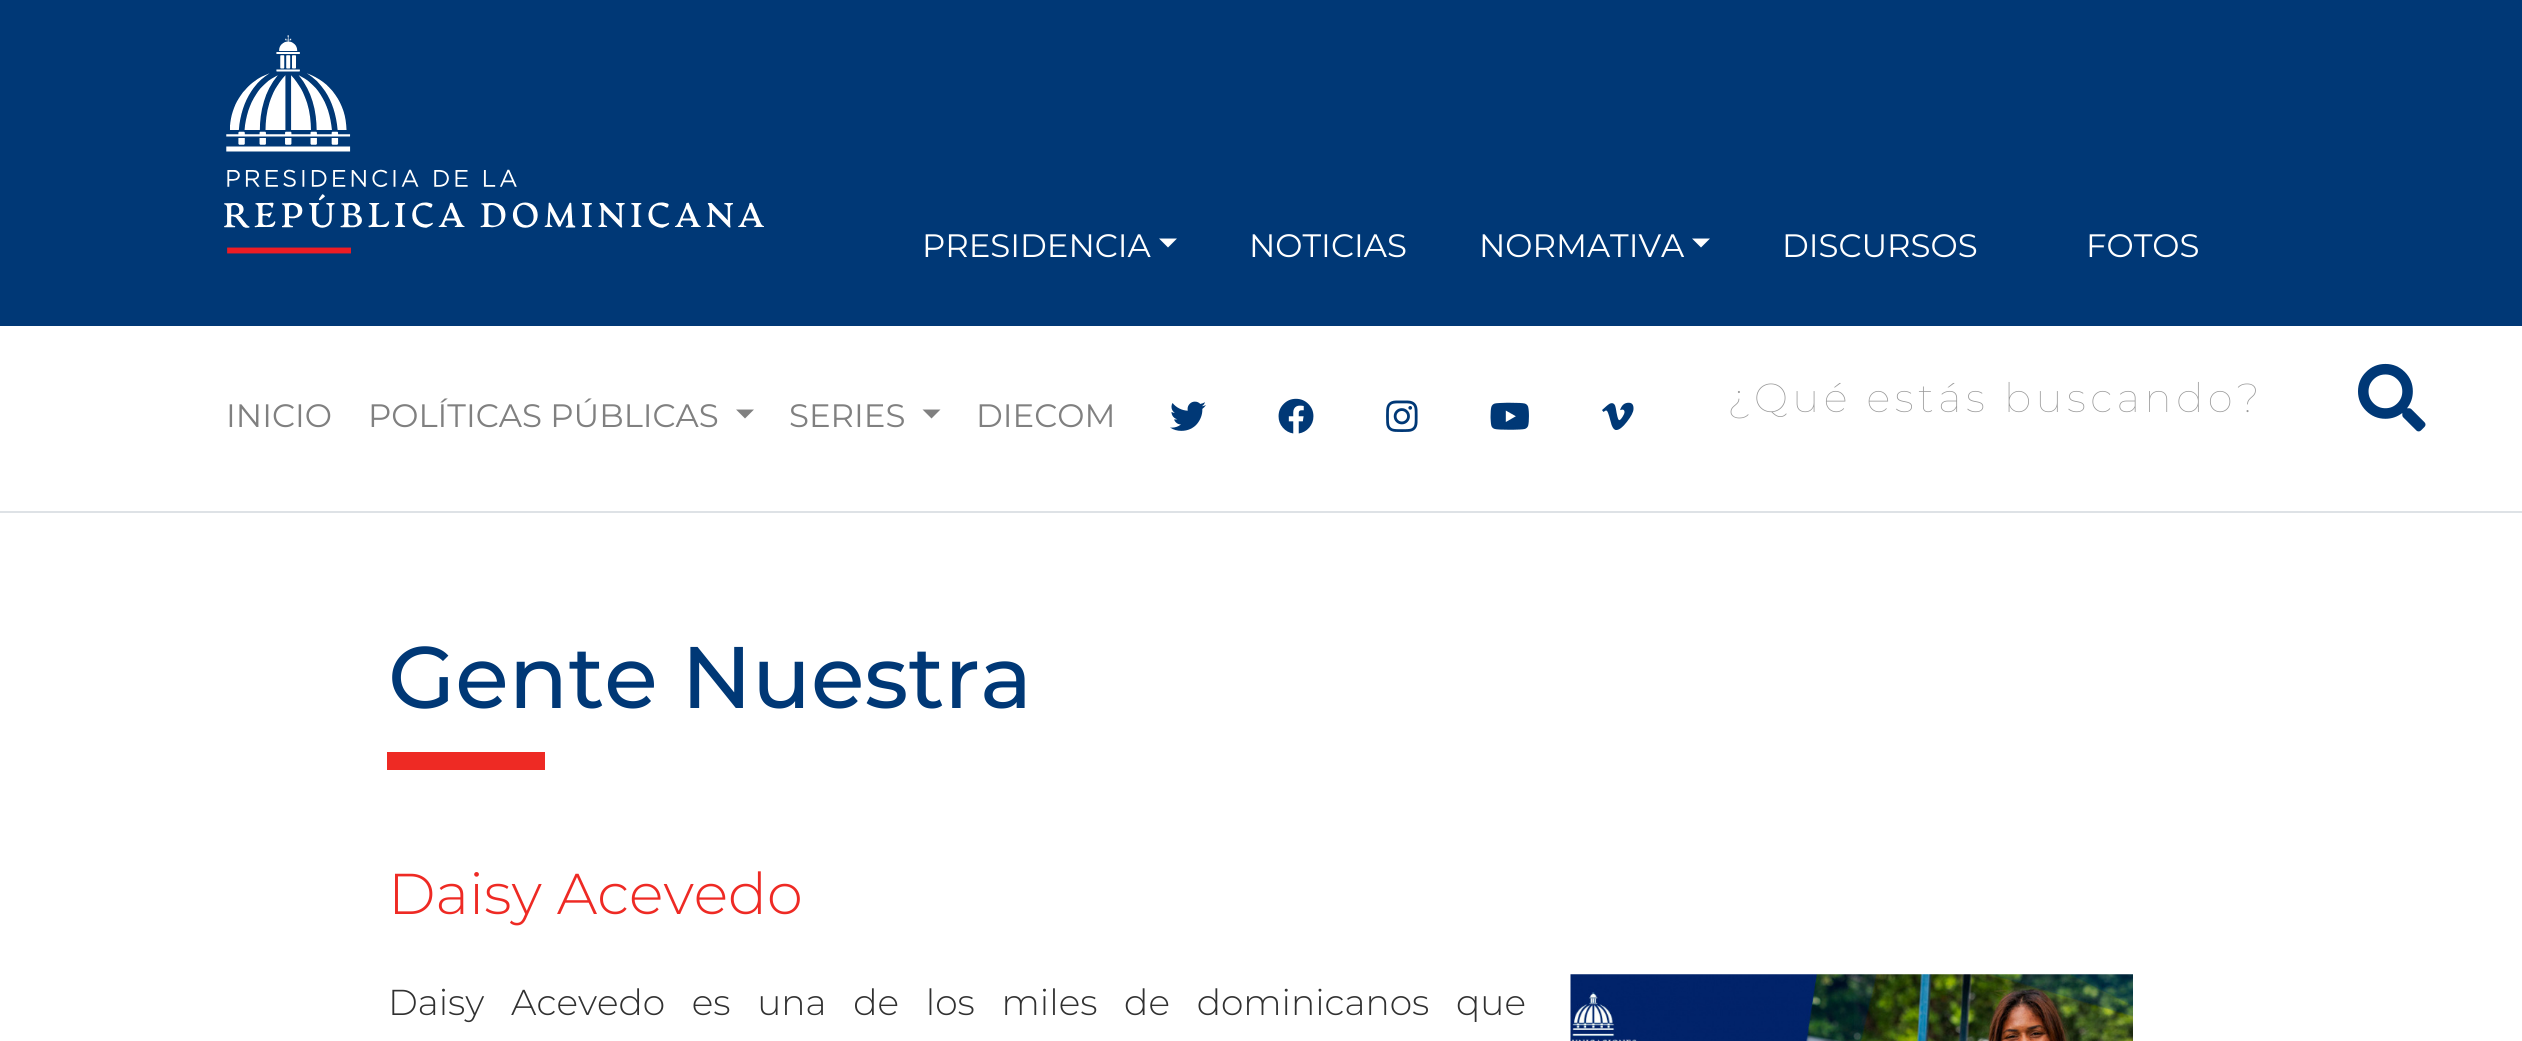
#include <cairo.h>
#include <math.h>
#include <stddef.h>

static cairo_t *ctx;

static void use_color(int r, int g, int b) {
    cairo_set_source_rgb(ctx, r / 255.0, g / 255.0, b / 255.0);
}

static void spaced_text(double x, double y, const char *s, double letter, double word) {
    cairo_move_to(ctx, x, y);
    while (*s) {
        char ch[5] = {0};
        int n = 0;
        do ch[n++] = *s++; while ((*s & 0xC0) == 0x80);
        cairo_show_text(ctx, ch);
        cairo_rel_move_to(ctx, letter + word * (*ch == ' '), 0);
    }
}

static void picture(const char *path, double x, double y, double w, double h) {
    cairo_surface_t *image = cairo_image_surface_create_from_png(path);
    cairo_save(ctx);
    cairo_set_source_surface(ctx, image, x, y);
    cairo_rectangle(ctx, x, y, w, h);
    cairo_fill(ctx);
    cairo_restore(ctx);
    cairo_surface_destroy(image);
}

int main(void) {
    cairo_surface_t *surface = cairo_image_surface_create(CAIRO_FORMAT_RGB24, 2522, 1041);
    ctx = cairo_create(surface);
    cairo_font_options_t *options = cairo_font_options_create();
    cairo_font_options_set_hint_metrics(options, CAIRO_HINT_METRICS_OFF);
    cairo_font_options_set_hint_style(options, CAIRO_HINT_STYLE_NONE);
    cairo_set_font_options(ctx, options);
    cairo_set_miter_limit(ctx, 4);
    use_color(255, 255, 255);
    cairo_paint(ctx);
    use_color(0, 56, 118);
    cairo_rectangle(ctx, 0, 0, 2522, 326);
    cairo_fill(ctx);
    picture("img1.png", 224, 35, 540, 219);
    cairo_select_font_face(ctx, "Montserrat", CAIRO_FONT_SLANT_NORMAL, CAIRO_FONT_WEIGHT_NORMAL);
    cairo_set_font_size(ctx, 32.4);
    use_color(255, 255, 255);
    cairo_move_to(ctx, 922, 257);
    cairo_show_text(ctx, "PRESIDENCIA");
    cairo_new_path(ctx);
    cairo_move_to(ctx, 1159, 238.5);
    cairo_line_to(ctx, 1177, 238.5);
    cairo_line_to(ctx, 1168, 247.5);
    cairo_close_path(ctx);
    cairo_fill(ctx);
    cairo_move_to(ctx, 1249, 257);
    cairo_show_text(ctx, "NOTICIAS");
    cairo_move_to(ctx, 1479, 257);
    cairo_show_text(ctx, "NORMATIVA");
    cairo_new_path(ctx);
    cairo_move_to(ctx, 1692, 238.5);
    cairo_line_to(ctx, 1710, 238.5);
    cairo_line_to(ctx, 1701, 247.5);
    cairo_close_path(ctx);
    cairo_fill(ctx);
    cairo_move_to(ctx, 1782, 257);
    cairo_show_text(ctx, "DISCURSOS");
    cairo_move_to(ctx, 2086, 257);
    cairo_show_text(ctx, "FOTOS");
    use_color(222, 226, 230);
    cairo_rectangle(ctx, 0, 511, 2522, 2);
    cairo_fill(ctx);
    use_color(128, 128, 128);
    cairo_move_to(ctx, 226, 427);
    cairo_show_text(ctx, "INICIO");
    cairo_move_to(ctx, 368, 427);
    cairo_show_text(ctx, "POLÍTICAS PÚBLICAS");
    cairo_new_path(ctx);
    cairo_move_to(ctx, 736, 409.5);
    cairo_line_to(ctx, 754, 409.5);
    cairo_line_to(ctx, 745, 418.5);
    cairo_close_path(ctx);
    cairo_fill(ctx);
    cairo_move_to(ctx, 789, 427);
    cairo_show_text(ctx, "SERIES");
    cairo_new_path(ctx);
    cairo_move_to(ctx, 922.5, 409.5);
    cairo_line_to(ctx, 940.5, 409.5);
    cairo_line_to(ctx, 931.5, 418.5);
    cairo_close_path(ctx);
    cairo_fill(ctx);
    cairo_move_to(ctx, 976, 427);
    cairo_show_text(ctx, "DIECOM");
    picture("img2.png", 1170, 401, 36, 30);
    picture("img3.png", 1278, 398, 36, 36);
    picture("img4.png", 1386, 400, 32, 32);
    picture("img5.png", 1490, 402, 39, 28);
    picture("img6.png", 1602, 402, 32, 28);
    cairo_select_font_face(ctx, "Montserrat Thin", CAIRO_FONT_SLANT_NORMAL, CAIRO_FONT_WEIGHT_NORMAL);
    cairo_set_font_size(ctx, 40.5);
    use_color(153, 153, 153);
    spaced_text(1727, 412, "¿Qué estás buscando?", 4.5, 0);
    picture("img7.png", 2358, 363, 68, 69);
    cairo_select_font_face(ctx, "Montserrat Medium", CAIRO_FONT_SLANT_NORMAL, CAIRO_FONT_WEIGHT_NORMAL);
    cairo_set_font_size(ctx, 87.25);
    use_color(0, 56, 118);
    cairo_move_to(ctx, 388, 708);
    cairo_show_text(ctx, "Gente Nuestra");
    use_color(238, 42, 36);
    cairo_rectangle(ctx, 387, 752, 158, 18);
    cairo_fill(ctx);
    cairo_select_font_face(ctx, "Montserrat Light", CAIRO_FONT_SLANT_NORMAL, CAIRO_FONT_WEIGHT_NORMAL);
    cairo_set_font_size(ctx, 57.5);
    cairo_move_to(ctx, 388, 914);
    cairo_show_text(ctx, "Daisy Acevedo");
    cairo_set_font_size(ctx, 36);
    use_color(49, 49, 49);
    spaced_text(388, 1015, "Daisy Acevedo es una de los miles de dominicanos que", 0, 17.5);
    picture("img8.png", 1570, 974, 563, 67);
    cairo_surface_write_to_png(surface, "result.png");
    cairo_font_options_destroy(options);
    cairo_destroy(ctx);
    cairo_surface_destroy(surface);
    return 0;
}
